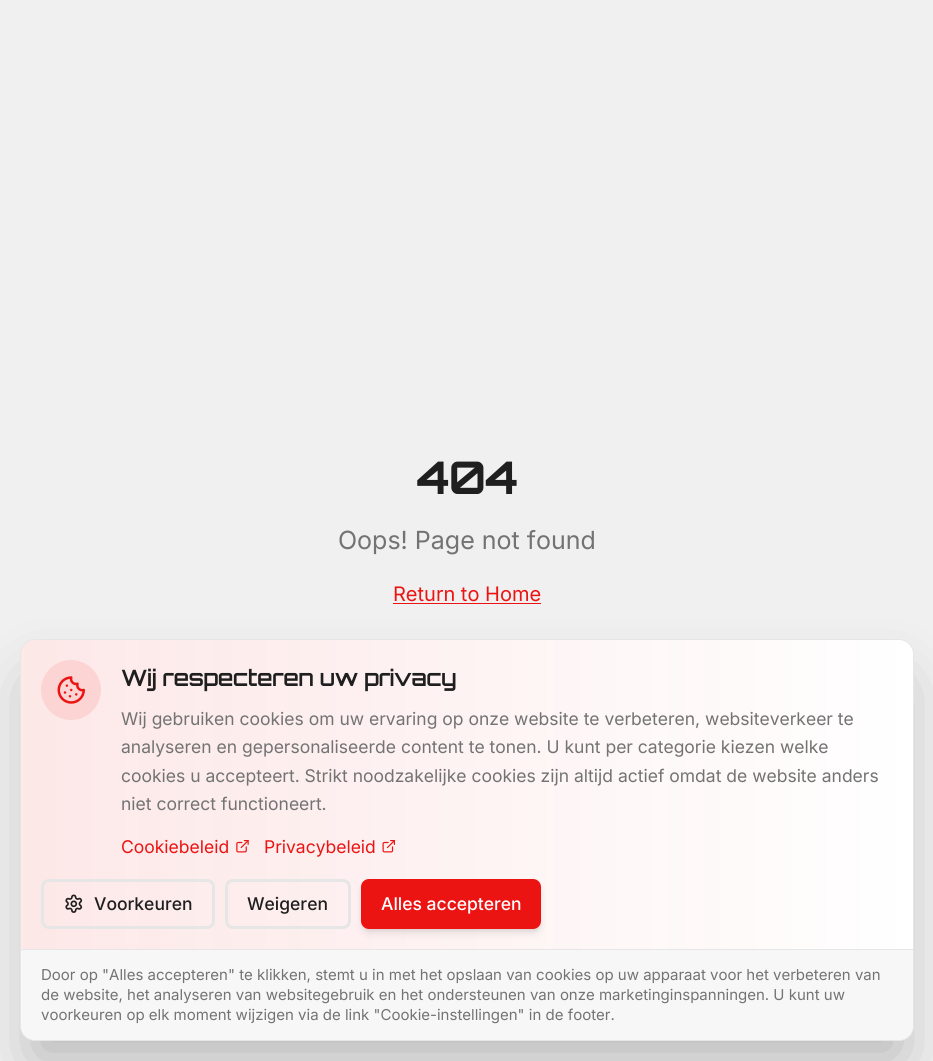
#include <cairo.h>
#include <math.h>
#include <stddef.h>

static cairo_t *ctx;

static void use_color(int r, int g, int b) {
    cairo_set_source_rgb(ctx, r / 255.0, g / 255.0, b / 255.0);
}

static void spaced_text(double x, double y, const char *s, double letter, double word) {
    cairo_move_to(ctx, x, y);
    while (*s) {
        char ch[5] = {0};
        int n = 0;
        do ch[n++] = *s++; while ((*s & 0xC0) == 0x80);
        cairo_show_text(ctx, ch);
        cairo_rel_move_to(ctx, letter + word * (*ch == ' '), 0);
    }
}

static void round_rect(double x, double y, double w, double h, double r) {
    cairo_new_sub_path(ctx);
    cairo_arc(ctx, x + w - r, y + h - r, r, 0, M_PI / 2);
    cairo_arc(ctx, x + r, y + h - r, r, M_PI / 2, M_PI);
    cairo_arc(ctx, x + r, y + r, r, M_PI, 1.5 * M_PI);
    cairo_arc(ctx, x + w - r, y + r, r, 1.5 * M_PI, 2 * M_PI);
    cairo_close_path(ctx);
}

static void shadow(double x, double y, double w, double h, double r, double blur, double alpha) {
    cairo_push_group_with_content(ctx, CAIRO_CONTENT_ALPHA);
    cairo_set_operator(ctx, CAIRO_OPERATOR_SOURCE);
    for (int i = 15; i >= -15 && fmin(w, h) + blur * i / 3 > 0; i -= 2) {
        double e = blur * i / 6;
        cairo_set_source_rgba(ctx, 0, 0, 0, alpha * erfc((i - 1) / 8.5) / 2);
        round_rect(x - e, y - e, w + 2 * e, h + 2 * e, fmax(0, fmin(r + e + blur * .6, fmin(w, h) / 2 + e)));
        cairo_fill(ctx);
    }
    cairo_pattern_t *soft = cairo_pop_group(ctx);
    cairo_mask(ctx, soft);
    cairo_pattern_destroy(soft);
}

static void picture(const char *path, double x, double y, double w, double h) {
    cairo_surface_t *image = cairo_image_surface_create_from_png(path);
    cairo_save(ctx);
    cairo_set_source_surface(ctx, image, x, y);
    cairo_rectangle(ctx, x, y, w, h);
    cairo_fill(ctx);
    cairo_restore(ctx);
    cairo_surface_destroy(image);
}

int main(void) {
    cairo_surface_t *surface = cairo_image_surface_create(CAIRO_FORMAT_RGB24, 933, 1061);
    ctx = cairo_create(surface);
    cairo_font_options_t *options = cairo_font_options_create();
    cairo_font_options_set_hint_metrics(options, CAIRO_HINT_METRICS_OFF);
    cairo_font_options_set_hint_style(options, CAIRO_HINT_STYLE_NONE);
    cairo_set_font_options(ctx, options);
    cairo_set_miter_limit(ctx, 4);
    cairo_pattern_t *gradient;
    use_color(240, 240, 240);
    cairo_paint(ctx);
    cairo_select_font_face(ctx, "Orbitron", CAIRO_FONT_SLANT_NORMAL, CAIRO_FONT_WEIGHT_BOLD);
    cairo_set_font_size(ctx, 45);
    use_color(31, 31, 31);
    spaced_text(417, 494, "404", -1, 0);
    cairo_select_font_face(ctx, "Inter", CAIRO_FONT_SLANT_NORMAL, CAIRO_FONT_WEIGHT_NORMAL);
    cairo_set_font_size(ctx, 25);
    use_color(115, 115, 115);
    cairo_move_to(ctx, 338, 549);
    cairo_show_text(ctx, "Oops! Page not found");
    cairo_set_font_size(ctx, 20);
    use_color(236, 19, 19);
    cairo_move_to(ctx, 393, 601);
    cairo_show_text(ctx, "Return to Home");
    cairo_rectangle(ctx, 393, 603, 148, 1);
    cairo_fill(ctx);
    use_color(0, 0, 0);
    shadow(35, 685, 864, 373, 0, 31, 0.25);
    use_color(255, 255, 255);
    round_rect(20.5, 639.5, 893, 401, 14.5);
    cairo_fill_preserve(ctx);
    use_color(230, 230, 230);
    cairo_set_line_width(ctx, 1);
    cairo_stroke(ctx);
    gradient = cairo_pattern_create_linear(21, 794, 913, 794);
    cairo_pattern_add_color_stop_rgba(gradient, 0, 0.925, 0.075, 0.075, 0.1);
    cairo_pattern_add_color_stop_rgba(gradient, 0.5, 0.925, 0.075, 0.075, 0.05);
    cairo_pattern_add_color_stop_rgba(gradient, 1, 0.925, 0.075, 0.075, 0);
    cairo_set_source(ctx, gradient);
    cairo_pattern_destroy(gradient);
    cairo_new_path(ctx);
    cairo_move_to(ctx, 35, 640);
    cairo_line_to(ctx, 899, 640);
    cairo_curve_to(ctx, 906.5, 640, 913, 646.5, 913, 654);
    cairo_line_to(ctx, 913, 949);
    cairo_line_to(ctx, 21, 949);
    cairo_line_to(ctx, 21, 654);
    cairo_curve_to(ctx, 21, 646.5, 27.5, 640, 35, 640);
    cairo_close_path(ctx);
    cairo_fill(ctx);
    use_color(252, 212, 212);
    cairo_arc(ctx, 71, 690, 30, 0, 2 * M_PI);
    cairo_fill(ctx);
    picture("img1.png", 57, 676, 28, 28);
    cairo_select_font_face(ctx, "Orbitron SemiBold", CAIRO_FONT_SLANT_NORMAL, CAIRO_FONT_WEIGHT_NORMAL);
    cairo_set_font_size(ctx, 22.5);
    use_color(31, 31, 31);
    spaced_text(121, 686, "Wij respecteren uw privacy", -0.55, 0);
    cairo_select_font_face(ctx, "Inter", CAIRO_FONT_SLANT_NORMAL, CAIRO_FONT_WEIGHT_NORMAL);
    cairo_set_font_size(ctx, 17.5);
    use_color(115, 115, 115);
    cairo_move_to(ctx, 121, 725);
    cairo_show_text(ctx, "Wij gebruiken cookies om uw ervaring op onze website te verbeteren, websiteverkeer te");
    cairo_move_to(ctx, 121, 753);
    cairo_show_text(ctx, "analyseren en gepersonaliseerde content te tonen. U kunt per categorie kiezen welke");
    cairo_move_to(ctx, 121, 782);
    cairo_show_text(ctx, "cookies u accepteert. Strikt noodzakelijke cookies zijn altijd actief omdat de website anders");
    cairo_move_to(ctx, 121, 810);
    cairo_show_text(ctx, "niet correct functioneert.");
    use_color(236, 19, 19);
    cairo_move_to(ctx, 121, 853);
    cairo_show_text(ctx, "Cookiebeleid");
    picture("img2.png", 236, 840, 13, 13);
    cairo_move_to(ctx, 264, 853);
    cairo_show_text(ctx, "Privacybeleid");
    picture("img3.png", 382, 840, 13, 13);
    round_rect(42.5, 880.5, 171, 47, 6.5);
    use_color(230, 230, 230);
    cairo_set_line_width(ctx, 3);
    cairo_stroke(ctx);
    picture("img4.png", 65, 894, 18, 19);
    cairo_select_font_face(ctx, "Inter Medium", CAIRO_FONT_SLANT_NORMAL, CAIRO_FONT_WEIGHT_NORMAL);
    use_color(31, 31, 31);
    cairo_move_to(ctx, 94, 910);
    cairo_show_text(ctx, "Voorkeuren");
    round_rect(226.5, 880.5, 123, 47, 6.5);
    use_color(230, 230, 230);
    cairo_stroke(ctx);
    use_color(31, 31, 31);
    cairo_move_to(ctx, 247, 910);
    cairo_show_text(ctx, "Weigeren");
    use_color(0, 0, 0);
    shadow(364, 884, 175, 45, 5, 2.5, 0.1);
    shadow(363, 885, 177, 48, 6, 4, 0.1);
    use_color(236, 19, 19);
    round_rect(361, 879, 180, 50, 8);
    cairo_fill(ctx);
    use_color(255, 255, 255);
    cairo_move_to(ctx, 381, 910);
    cairo_show_text(ctx, "Alles accepteren");
    cairo_set_source_rgba(ctx, 0.941, 0.941, 0.941, 0.5);
    cairo_new_path(ctx);
    cairo_move_to(ctx, 21, 950);
    cairo_line_to(ctx, 913, 950);
    cairo_line_to(ctx, 913, 1026);
    cairo_curve_to(ctx, 913, 1033.5, 906.5, 1040, 899, 1040);
    cairo_line_to(ctx, 35, 1040);
    cairo_curve_to(ctx, 27.5, 1040, 21, 1033.5, 21, 1026);
    cairo_close_path(ctx);
    cairo_fill(ctx);
    use_color(230, 230, 230);
    cairo_rectangle(ctx, 21, 949, 892, 1);
    cairo_fill(ctx);
    cairo_select_font_face(ctx, "Inter", CAIRO_FONT_SLANT_NORMAL, CAIRO_FONT_WEIGHT_NORMAL);
    cairo_set_font_size(ctx, 15);
    use_color(115, 115, 115);
    cairo_move_to(ctx, 41, 980);
    cairo_show_text(ctx, "Door op \"Alles accepteren\" te klikken, stemt u in met het opslaan van cookies op uw apparaat voor het verbeteren van");
    cairo_move_to(ctx, 41, 1000);
    cairo_show_text(ctx, "de website, het analyseren van websitegebruik en het ondersteunen van onze marketinginspanningen. U kunt uw");
    cairo_move_to(ctx, 41, 1020);
    cairo_show_text(ctx, "voorkeuren op elk moment wijzigen via de link \"Cookie-instellingen\" in de footer.");
    cairo_surface_write_to_png(surface, "result.png");
    cairo_font_options_destroy(options);
    cairo_destroy(ctx);
    cairo_surface_destroy(surface);
    return 0;
}
